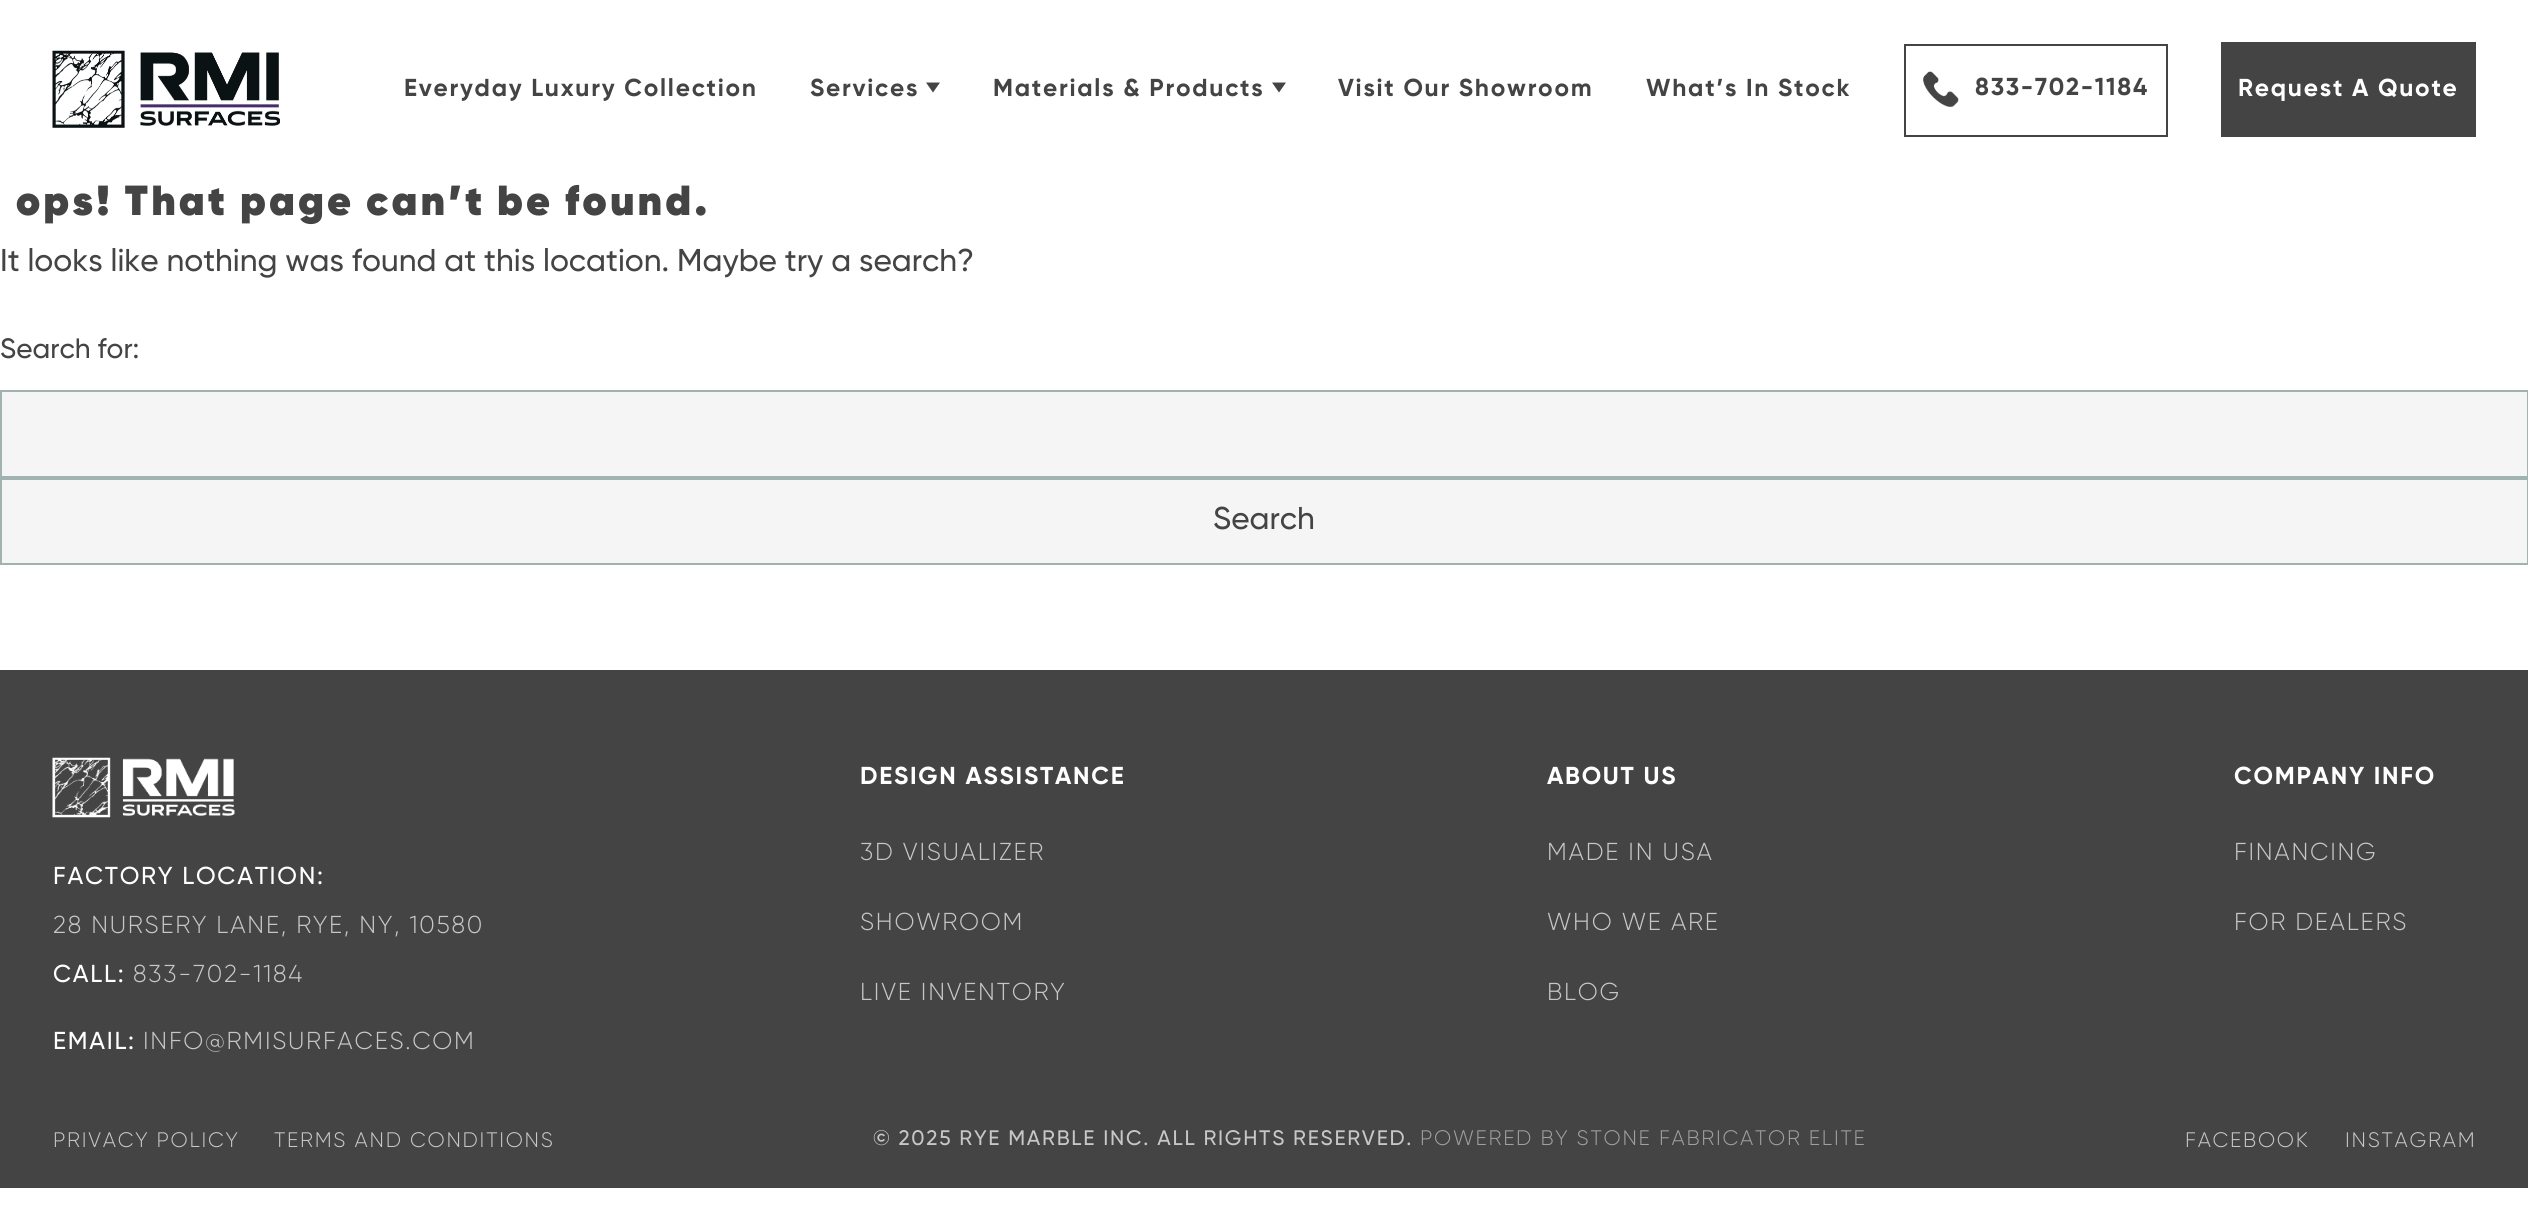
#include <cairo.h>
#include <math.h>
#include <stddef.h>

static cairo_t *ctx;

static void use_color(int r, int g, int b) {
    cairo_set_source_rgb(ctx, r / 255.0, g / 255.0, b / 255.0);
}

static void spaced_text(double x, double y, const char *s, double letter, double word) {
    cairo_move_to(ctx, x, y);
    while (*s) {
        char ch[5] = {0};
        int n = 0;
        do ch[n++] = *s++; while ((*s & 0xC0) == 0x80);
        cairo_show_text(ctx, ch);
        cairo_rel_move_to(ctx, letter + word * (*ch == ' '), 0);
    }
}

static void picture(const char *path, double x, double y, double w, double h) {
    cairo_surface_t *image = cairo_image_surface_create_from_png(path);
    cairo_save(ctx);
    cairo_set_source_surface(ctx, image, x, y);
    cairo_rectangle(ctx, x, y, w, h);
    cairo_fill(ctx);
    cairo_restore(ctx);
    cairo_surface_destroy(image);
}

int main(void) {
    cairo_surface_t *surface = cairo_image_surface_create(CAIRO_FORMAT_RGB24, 2528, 1205);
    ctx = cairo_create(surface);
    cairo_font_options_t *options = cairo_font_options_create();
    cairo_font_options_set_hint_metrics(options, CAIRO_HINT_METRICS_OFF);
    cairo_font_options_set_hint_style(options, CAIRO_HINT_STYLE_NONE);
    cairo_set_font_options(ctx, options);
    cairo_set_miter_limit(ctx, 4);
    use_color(255, 255, 255);
    cairo_paint(ctx);
    picture("img1.png", 52, 50, 228, 78);
    cairo_select_font_face(ctx, "Gilroy", CAIRO_FONT_SLANT_NORMAL, CAIRO_FONT_WEIGHT_BOLD);
    cairo_set_font_size(ctx, 24.5);
    use_color(68, 68, 68);
    spaced_text(404, 96, "Everyday Luxury Collection", 1.75, 0);
    spaced_text(810, 96, "Services", 1.75, 0);
    cairo_new_path(ctx);
    cairo_move_to(ctx, 933, 92.5);
    cairo_line_to(ctx, 926, 82.5);
    cairo_line_to(ctx, 940, 82.5);
    cairo_close_path(ctx);
    cairo_fill(ctx);
    spaced_text(993, 96, "Materials & Products", 1.75, 0);
    cairo_new_path(ctx);
    cairo_move_to(ctx, 1279, 92.5);
    cairo_line_to(ctx, 1272, 82.5);
    cairo_line_to(ctx, 1286, 82.5);
    cairo_close_path(ctx);
    cairo_fill(ctx);
    spaced_text(1338, 96, "Visit Our Showroom", 1.75, 0);
    spaced_text(1646, 96, "What’s In Stock", 1.75, 0);
    cairo_rectangle(ctx, 1905, 45, 262, 91);
    cairo_stroke(ctx);
    picture("img2.png", 1923, 71, 36, 36);
    spaced_text(1975, 95, "833-702-1184", 1.75, 0);
    cairo_rectangle(ctx, 2221, 42, 255, 95);
    cairo_fill(ctx);
    use_color(255, 255, 255);
    spaced_text(2238, 96, "Request A Quote", 1.75, 0);
    cairo_select_font_face(ctx, "Gilroy Black", CAIRO_FONT_SLANT_NORMAL, CAIRO_FONT_WEIGHT_NORMAL);
    cairo_set_font_size(ctx, 42);
    use_color(68, 68, 68);
    spaced_text(16, 215, "ops! That page can’t be found.", 3.5, 0);
    cairo_select_font_face(ctx, "Gilroy Medium", CAIRO_FONT_SLANT_NORMAL, CAIRO_FONT_WEIGHT_NORMAL);
    cairo_set_font_size(ctx, 31.5);
    cairo_move_to(ctx, 0, 271);
    cairo_show_text(ctx, "It looks like nothing was found at this location. Maybe try a search?");
    cairo_set_font_size(ctx, 28);
    cairo_move_to(ctx, 0, 358);
    cairo_show_text(ctx, "Search for:");
    use_color(245, 245, 245);
    cairo_rectangle(ctx, 1, 391, 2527, 86);
    cairo_fill_preserve(ctx);
    use_color(160, 179, 176);
    cairo_stroke(ctx);
    use_color(245, 245, 245);
    cairo_rectangle(ctx, 1, 479, 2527, 85);
    cairo_fill_preserve(ctx);
    use_color(160, 179, 176);
    cairo_stroke(ctx);
    cairo_set_font_size(ctx, 31.5);
    use_color(68, 68, 68);
    cairo_move_to(ctx, 1213, 529);
    cairo_show_text(ctx, "Search");
    cairo_rectangle(ctx, 0, 670, 2528, 518);
    cairo_fill(ctx);
    cairo_select_font_face(ctx, "Gilroy", CAIRO_FONT_SLANT_NORMAL, CAIRO_FONT_WEIGHT_BOLD);
    cairo_set_font_size(ctx, 24.5);
    use_color(255, 255, 255);
    spaced_text(860, 784, "DESIGN ASSISTANCE", 1.75, 0);
    cairo_select_font_face(ctx, "Gilroy Light", CAIRO_FONT_SLANT_NORMAL, CAIRO_FONT_WEIGHT_NORMAL);
    use_color(199, 199, 199);
    spaced_text(860, 860, "3D VISUALIZER", 1.75, 0);
    spaced_text(860, 930, "SHOWROOM", 1.75, 0);
    spaced_text(860, 1000, "LIVE INVENTORY", 1.75, 0);
    cairo_select_font_face(ctx, "Gilroy", CAIRO_FONT_SLANT_NORMAL, CAIRO_FONT_WEIGHT_BOLD);
    use_color(255, 255, 255);
    spaced_text(1547, 784, "ABOUT US", 1.75, 0);
    cairo_select_font_face(ctx, "Gilroy Light", CAIRO_FONT_SLANT_NORMAL, CAIRO_FONT_WEIGHT_NORMAL);
    use_color(199, 199, 199);
    spaced_text(1547, 860, "MADE IN USA", 1.75, 0);
    spaced_text(1547, 930, "WHO WE ARE", 1.75, 0);
    spaced_text(1547, 1000, "BLOG", 1.75, 0);
    cairo_select_font_face(ctx, "Gilroy", CAIRO_FONT_SLANT_NORMAL, CAIRO_FONT_WEIGHT_BOLD);
    use_color(255, 255, 255);
    spaced_text(2234, 784, "COMPANY INFO", 1.75, 0);
    cairo_select_font_face(ctx, "Gilroy Light", CAIRO_FONT_SLANT_NORMAL, CAIRO_FONT_WEIGHT_NORMAL);
    use_color(199, 199, 199);
    spaced_text(2234, 860, "FINANCING", 1.75, 0);
    spaced_text(2234, 930, "FOR DEALERS", 1.75, 0);
    picture("img3.png", 52, 757, 183, 61);
    cairo_select_font_face(ctx, "Gilroy Medium", CAIRO_FONT_SLANT_NORMAL, CAIRO_FONT_WEIGHT_NORMAL);
    use_color(255, 255, 255);
    spaced_text(53, 884, "FACTORY LOCATION:", 1.75, 0);
    cairo_select_font_face(ctx, "Gilroy Light", CAIRO_FONT_SLANT_NORMAL, CAIRO_FONT_WEIGHT_NORMAL);
    use_color(199, 199, 199);
    spaced_text(53, 933, "28 NURSERY LANE, RYE, NY, 10580", 1.75, 0);
    cairo_select_font_face(ctx, "Gilroy Medium", CAIRO_FONT_SLANT_NORMAL, CAIRO_FONT_WEIGHT_NORMAL);
    use_color(255, 255, 255);
    spaced_text(53, 982, "CALL:", 1.75, 0);
    cairo_select_font_face(ctx, "Gilroy Light", CAIRO_FONT_SLANT_NORMAL, CAIRO_FONT_WEIGHT_NORMAL);
    use_color(199, 199, 199);
    spaced_text(133, 982, "833-702-1184", 1.75, 0);
    cairo_select_font_face(ctx, "Gilroy Medium", CAIRO_FONT_SLANT_NORMAL, CAIRO_FONT_WEIGHT_NORMAL);
    use_color(255, 255, 255);
    spaced_text(53, 1049, "EMAIL:", 1.75, 0);
    cairo_select_font_face(ctx, "Gilroy Light", CAIRO_FONT_SLANT_NORMAL, CAIRO_FONT_WEIGHT_NORMAL);
    use_color(199, 199, 199);
    spaced_text(143, 1049, "INFO@RMISURFACES.COM", 1.75, 0);
    cairo_set_font_size(ctx, 21);
    spaced_text(53, 1147, "PRIVACY POLICY", 1.75, 0);
    spaced_text(274, 1147, "TERMS AND CONDITIONS", 1.75, 0);
    cairo_select_font_face(ctx, "Gilroy Medium", CAIRO_FONT_SLANT_NORMAL, CAIRO_FONT_WEIGHT_NORMAL);
    spaced_text(873, 1145, "© 2025 RYE MARBLE INC. ALL RIGHTS RESERVED.", 1.75, 0);
    cairo_select_font_face(ctx, "Gilroy Light", CAIRO_FONT_SLANT_NORMAL, CAIRO_FONT_WEIGHT_NORMAL);
    use_color(160, 160, 160);
    spaced_text(1420, 1145, "POWERED BY STONE FABRICATOR ELITE", 1.75, 0);
    use_color(199, 199, 199);
    spaced_text(2185, 1147, "FACEBOOK", 1.75, 0);
    spaced_text(2345, 1147, "INSTAGRAM", 1.75, 0);
    cairo_surface_write_to_png(surface, "result.png");
    cairo_font_options_destroy(options);
    cairo_destroy(ctx);
    cairo_surface_destroy(surface);
    return 0;
}
